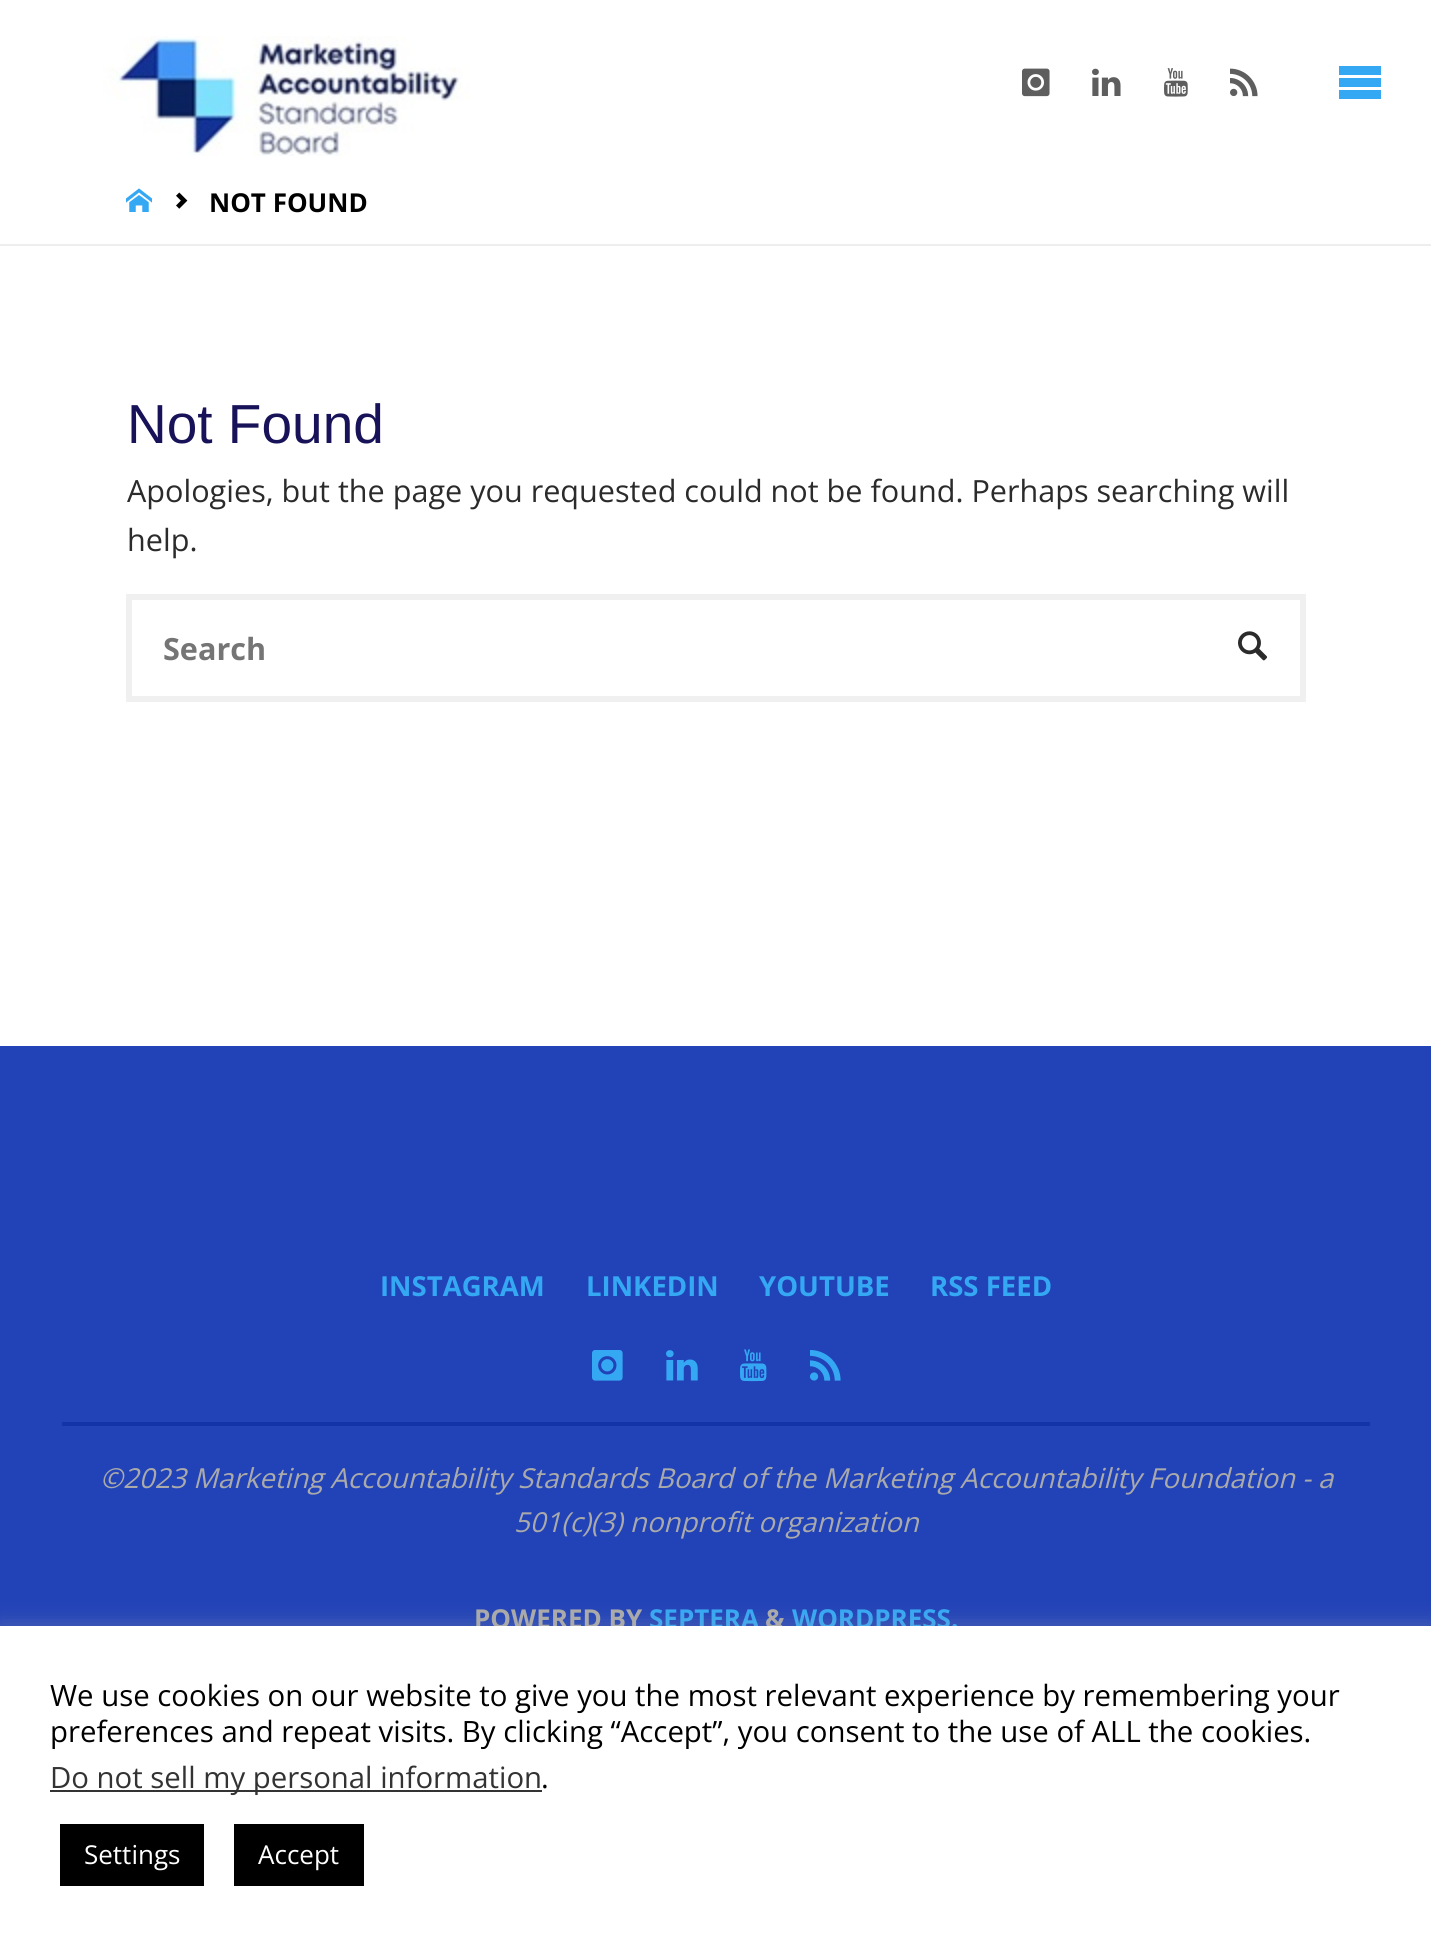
#include <cairo.h>
#include <math.h>
#include <stddef.h>

static cairo_t *ctx;

static void use_color(int r, int g, int b) {
    cairo_set_source_rgb(ctx, r / 255.0, g / 255.0, b / 255.0);
}

static void round_rect(double x, double y, double w, double h, double r) {
    cairo_new_sub_path(ctx);
    cairo_arc(ctx, x + w - r, y + h - r, r, 0, M_PI / 2);
    cairo_arc(ctx, x + r, y + h - r, r, M_PI / 2, M_PI);
    cairo_arc(ctx, x + r, y + r, r, M_PI, 1.5 * M_PI);
    cairo_arc(ctx, x + w - r, y + r, r, 1.5 * M_PI, 2 * M_PI);
    cairo_close_path(ctx);
}

static void shadow(double x, double y, double w, double h, double r, double blur, double alpha) {
    cairo_push_group_with_content(ctx, CAIRO_CONTENT_ALPHA);
    cairo_set_operator(ctx, CAIRO_OPERATOR_SOURCE);
    for (int i = 15; i >= -15 && fmin(w, h) + blur * i / 3 > 0; i -= 2) {
        double e = blur * i / 6;
        cairo_set_source_rgba(ctx, 0, 0, 0, alpha * erfc((i - 1) / 8.5) / 2);
        round_rect(x - e, y - e, w + 2 * e, h + 2 * e, fmax(0, fmin(r + e + blur * .6, fmin(w, h) / 2 + e)));
        cairo_fill(ctx);
    }
    cairo_pattern_t *soft = cairo_pop_group(ctx);
    cairo_mask(ctx, soft);
    cairo_pattern_destroy(soft);
}

static void picture(const char *path, double x, double y, double w, double h) {
    cairo_surface_t *image = cairo_image_surface_create_from_png(path);
    cairo_save(ctx);
    cairo_set_source_surface(ctx, image, x, y);
    cairo_rectangle(ctx, x, y, w, h);
    cairo_fill(ctx);
    cairo_restore(ctx);
    cairo_surface_destroy(image);
}

int main(void) {
    cairo_surface_t *surface = cairo_image_surface_create(CAIRO_FORMAT_RGB24, 1431, 1945);
    ctx = cairo_create(surface);
    cairo_font_options_t *options = cairo_font_options_create();
    cairo_font_options_set_hint_metrics(options, CAIRO_HINT_METRICS_OFF);
    cairo_font_options_set_hint_style(options, CAIRO_HINT_STYLE_NONE);
    cairo_set_font_options(ctx, options);
    cairo_set_miter_limit(ctx, 4);
    use_color(34, 67, 183);
    cairo_paint(ctx);
    use_color(255, 255, 255);
    cairo_rectangle(ctx, 0, 0, 1431, 244);
    cairo_fill(ctx);
    picture("img1.png", 103, 36, 367, 120);
    picture("img2.png", 1022, 68, 28, 29);
    picture("img3.png", 1092, 68, 29, 28);
    picture("img4.png", 1164, 68, 24, 29);
    picture("img5.png", 1230, 68, 28, 29);
    use_color(53, 168, 244);
    cairo_new_path(ctx);
    cairo_move_to(ctx, 1339, 66);
    cairo_line_to(ctx, 1381, 66);
    cairo_line_to(ctx, 1381, 75);
    cairo_line_to(ctx, 1339, 75);
    cairo_close_path(ctx);
    cairo_move_to(ctx, 1339, 78);
    cairo_line_to(ctx, 1381, 78);
    cairo_line_to(ctx, 1381, 87);
    cairo_line_to(ctx, 1339, 87);
    cairo_close_path(ctx);
    cairo_move_to(ctx, 1339, 90);
    cairo_line_to(ctx, 1381, 90);
    cairo_line_to(ctx, 1381, 99);
    cairo_line_to(ctx, 1339, 99);
    cairo_close_path(ctx);
    cairo_fill(ctx);
    use_color(238, 238, 238);
    cairo_rectangle(ctx, 0, 244, 1431, 2);
    cairo_fill(ctx);
    picture("img6.png", 126, 188, 26, 24);
    picture("img7.png", 176, 192, 12, 17);
    cairo_select_font_face(ctx, "Open Sans", CAIRO_FONT_SLANT_NORMAL, CAIRO_FONT_WEIGHT_BOLD);
    cairo_set_font_size(ctx, 26);
    use_color(0, 0, 0);
    cairo_move_to(ctx, 209, 212);
    cairo_show_text(ctx, "NOT FOUND");
    use_color(255, 255, 255);
    cairo_rectangle(ctx, 0, 246, 1431, 800);
    cairo_fill(ctx);
    cairo_select_font_face(ctx, "Liberation Sans", CAIRO_FONT_SLANT_NORMAL, CAIRO_FONT_WEIGHT_NORMAL);
    cairo_set_font_size(ctx, 55);
    use_color(24, 18, 89);
    cairo_move_to(ctx, 127, 443);
    cairo_show_text(ctx, "Not Found");
    cairo_select_font_face(ctx, "Open Sans", CAIRO_FONT_SLANT_NORMAL, CAIRO_FONT_WEIGHT_NORMAL);
    cairo_set_font_size(ctx, 30.6);
    use_color(43, 43, 43);
    cairo_move_to(ctx, 127, 502);
    cairo_show_text(ctx, "Apologies, but the page you requested could not be found. Perhaps searching will");
    cairo_move_to(ctx, 127, 551);
    cairo_show_text(ctx, "help.");
    cairo_rectangle(ctx, 129, 597, 1174, 102);
    use_color(240, 240, 240);
    cairo_set_line_width(ctx, 6);
    cairo_stroke(ctx);
    cairo_select_font_face(ctx, "Open Sans", CAIRO_FONT_SLANT_NORMAL, CAIRO_FONT_WEIGHT_BOLD);
    use_color(117, 117, 117);
    cairo_move_to(ctx, 163, 660);
    cairo_show_text(ctx, "Search");
    picture("img8.png", 1238, 631, 30, 30);
    cairo_set_font_size(ctx, 27.55);
    use_color(53, 168, 244);
    cairo_move_to(ctx, 380, 1296);
    cairo_show_text(ctx, "INSTAGRAM");
    cairo_move_to(ctx, 586, 1296);
    cairo_show_text(ctx, "LINKEDIN");
    cairo_move_to(ctx, 759, 1296);
    cairo_show_text(ctx, "YOUTUBE");
    cairo_move_to(ctx, 930, 1296);
    cairo_show_text(ctx, "RSS FEED");
    picture("img9.png", 592, 1350, 31, 31);
    picture("img10.png", 666, 1350, 32, 31);
    picture("img11.png", 740, 1349, 27, 33);
    picture("img12.png", 810, 1350, 31, 31);
    use_color(19, 52, 168);
    cairo_rectangle(ctx, 62, 1422, 1308, 4);
    cairo_fill(ctx);
    cairo_select_font_face(ctx, "Open Sans", CAIRO_FONT_SLANT_ITALIC, CAIRO_FONT_WEIGHT_NORMAL);
    use_color(170, 170, 170);
    cairo_move_to(ctx, 100, 1488);
    cairo_show_text(ctx, "©2023 Marketing Accountability Standards Board of the Marketing Accountability Foundation - a");
    cairo_move_to(ctx, 514, 1532);
    cairo_show_text(ctx, "501(c)(3) nonprofit organization");
    cairo_select_font_face(ctx, "Open Sans", CAIRO_FONT_SLANT_NORMAL, CAIRO_FONT_WEIGHT_BOLD);
    cairo_set_font_size(ctx, 26);
    cairo_move_to(ctx, 474, 1628);
    cairo_show_text(ctx, "POWERED BY");
    use_color(53, 168, 244);
    cairo_move_to(ctx, 649, 1628);
    cairo_show_text(ctx, "SEPTERA");
    use_color(170, 170, 170);
    cairo_move_to(ctx, 765, 1628);
    cairo_show_text(ctx, "&");
    use_color(53, 168, 244);
    cairo_move_to(ctx, 792, 1628);
    cairo_show_text(ctx, "WORDPRESS.");
    use_color(172, 171, 171);
    shadow(0, 1624, 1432, 320, 0, 10, 0.3);
    use_color(255, 255, 255);
    cairo_rectangle(ctx, 0, 1626, 1431, 319);
    cairo_fill(ctx);
    cairo_select_font_face(ctx, "Open Sans", CAIRO_FONT_SLANT_NORMAL, CAIRO_FONT_WEIGHT_NORMAL);
    cairo_set_font_size(ctx, 29.35);
    use_color(0, 0, 0);
    cairo_move_to(ctx, 50, 1706);
    cairo_show_text(ctx, "We use cookies on our website to give you the most relevant experience by remembering your");
    cairo_move_to(ctx, 50, 1742);
    cairo_show_text(ctx, "preferences and repeat visits. By clicking “Accept”, you consent to the use of ALL the cookies.");
    use_color(51, 51, 51);
    cairo_rectangle(ctx, 50, 1790, 492, 2);
    cairo_fill(ctx);
    cairo_move_to(ctx, 50, 1788);
    cairo_show_text(ctx, "Do not sell my personal information");
    use_color(0, 0, 0);
    cairo_move_to(ctx, 541, 1788);
    cairo_show_text(ctx, ".");
    cairo_rectangle(ctx, 60, 1824, 144, 62);
    cairo_fill(ctx);
    cairo_set_font_size(ctx, 26);
    use_color(255, 255, 255);
    cairo_move_to(ctx, 84, 1864);
    cairo_show_text(ctx, "Settings");
    use_color(0, 0, 0);
    cairo_rectangle(ctx, 234, 1824, 130, 62);
    cairo_fill(ctx);
    use_color(255, 255, 255);
    cairo_move_to(ctx, 258, 1864);
    cairo_show_text(ctx, "Accept");
    cairo_surface_write_to_png(surface, "result.png");
    cairo_font_options_destroy(options);
    cairo_destroy(ctx);
    cairo_surface_destroy(surface);
    return 0;
}
